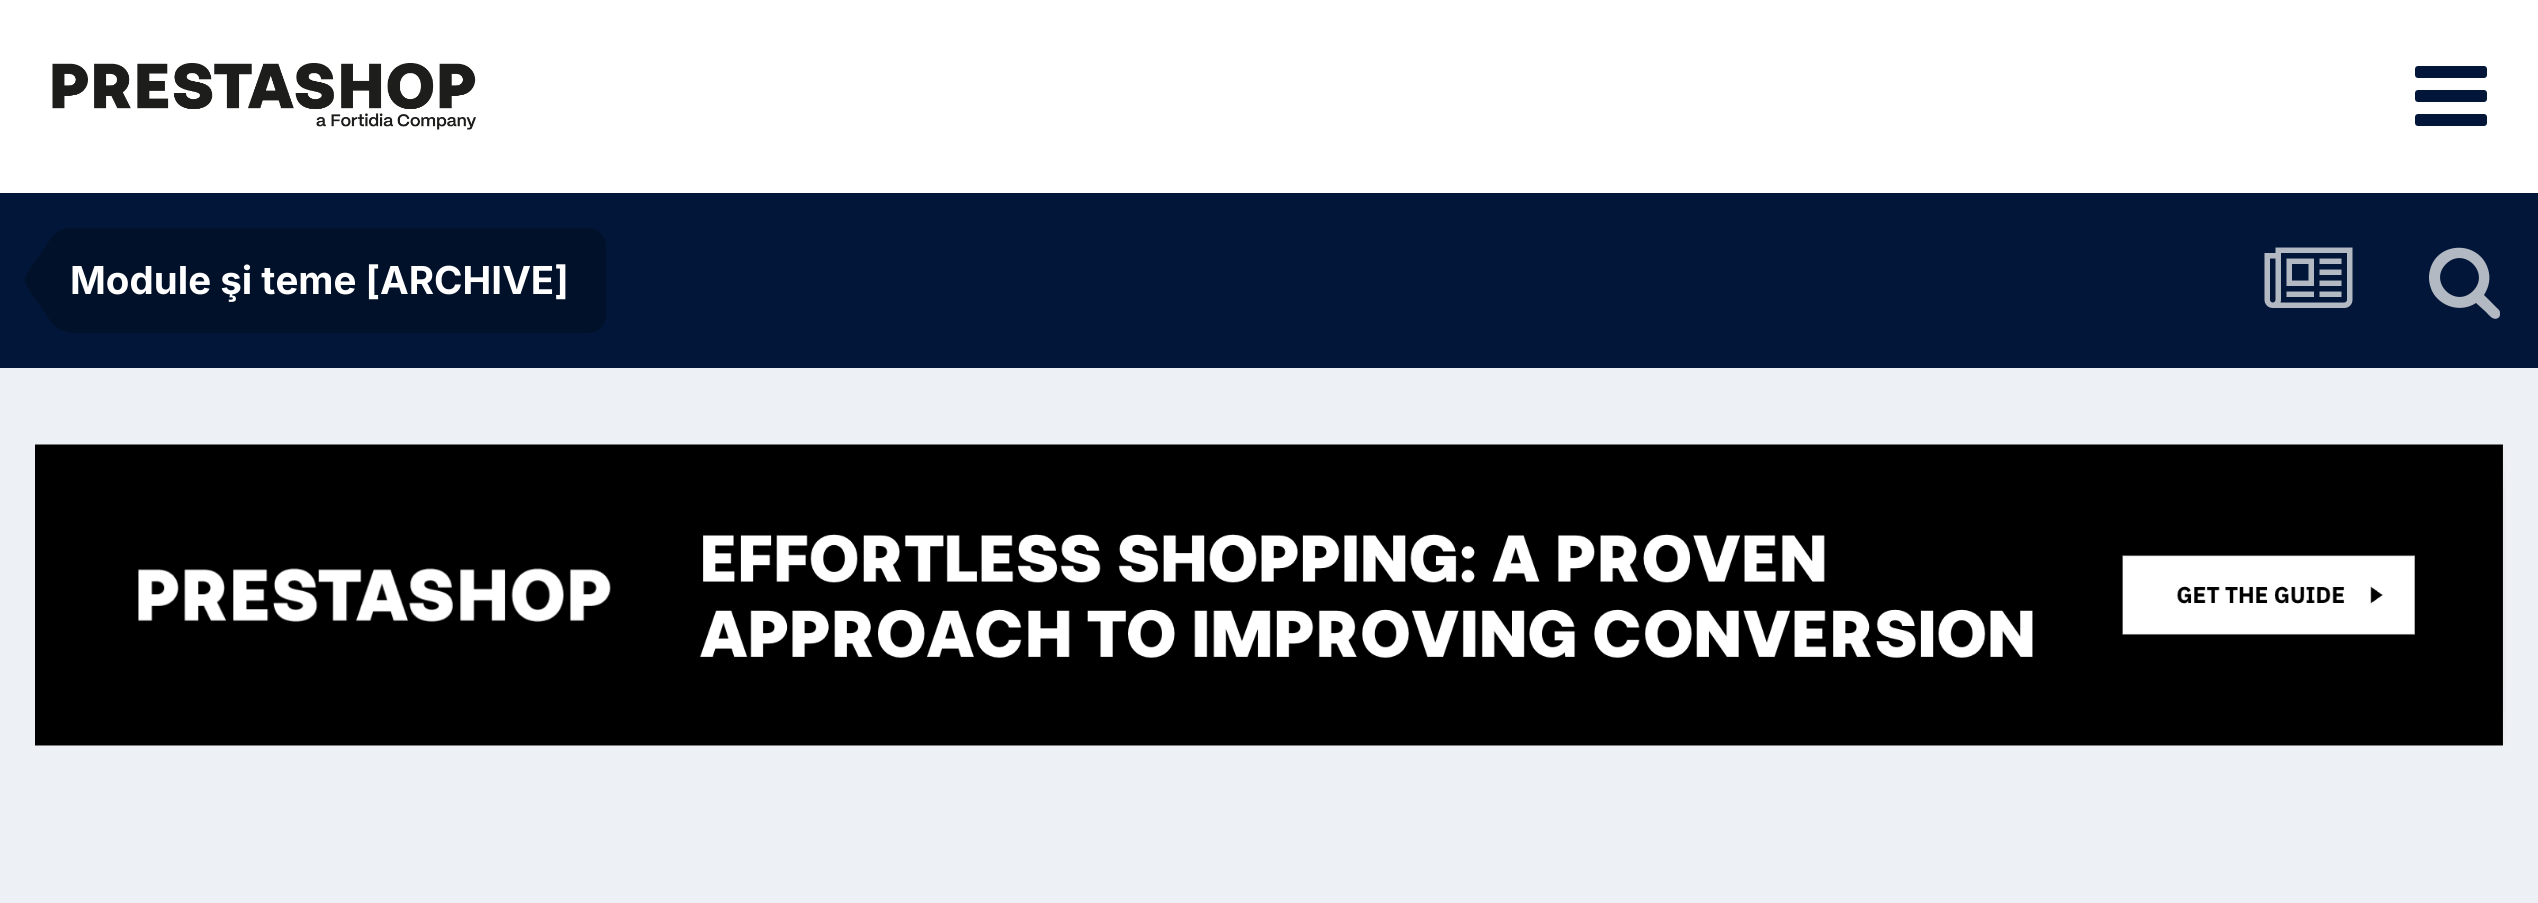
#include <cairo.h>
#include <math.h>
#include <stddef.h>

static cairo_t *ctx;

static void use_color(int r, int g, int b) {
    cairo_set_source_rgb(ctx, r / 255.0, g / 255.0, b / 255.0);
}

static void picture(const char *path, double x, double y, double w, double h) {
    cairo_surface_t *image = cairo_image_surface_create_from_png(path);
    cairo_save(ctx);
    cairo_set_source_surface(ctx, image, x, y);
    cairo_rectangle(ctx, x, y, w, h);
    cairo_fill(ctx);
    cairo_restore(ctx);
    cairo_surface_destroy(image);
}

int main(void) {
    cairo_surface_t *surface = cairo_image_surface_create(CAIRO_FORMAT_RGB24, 2538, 903);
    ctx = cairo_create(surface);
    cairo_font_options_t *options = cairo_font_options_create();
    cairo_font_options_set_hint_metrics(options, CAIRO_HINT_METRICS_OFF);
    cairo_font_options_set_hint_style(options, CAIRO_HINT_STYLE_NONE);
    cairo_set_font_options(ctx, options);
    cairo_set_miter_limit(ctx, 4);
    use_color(237, 240, 244);
    cairo_paint(ctx);
    use_color(255, 255, 255);
    cairo_rectangle(ctx, 0, 0, 2538, 193);
    cairo_fill(ctx);
    picture("img1.png", 52, 63, 424, 67);
    picture("img2.png", 2415, 66, 72, 60);
    use_color(1, 22, 56);
    cairo_rectangle(ctx, 0, 193, 2538, 175);
    cairo_fill(ctx);
    use_color(1, 17, 42);
    cairo_new_path(ctx);
    cairo_move_to(ctx, 70, 228);
    cairo_line_to(ctx, 588, 228);
    cairo_curve_to(ctx, 598, 228, 606, 236, 606, 246);
    cairo_line_to(ctx, 606, 315);
    cairo_curve_to(ctx, 606, 325, 598, 333, 588, 333);
    cairo_line_to(ctx, 70, 333);
    cairo_close_path(ctx);
    cairo_fill(ctx);
    cairo_new_path(ctx);
    cairo_move_to(ctx, 70, 280);
    cairo_line_to(ctx, 70, 332);
    cairo_curve_to(ctx, 64, 332, 57, 329, 52, 323);
    cairo_line_to(ctx, 27, 287);
    cairo_curve_to(ctx, 26, 285, 25, 282, 25, 280);
    cairo_close_path(ctx);
    cairo_fill(ctx);
    cairo_new_path(ctx);
    cairo_move_to(ctx, 70, 280);
    cairo_line_to(ctx, 25, 280);
    cairo_curve_to(ctx, 25, 278, 26, 275, 27, 273);
    cairo_line_to(ctx, 52, 237);
    cairo_curve_to(ctx, 57, 231, 64, 228, 70, 228);
    cairo_close_path(ctx);
    cairo_fill(ctx);
    cairo_select_font_face(ctx, "Inter", CAIRO_FONT_SLANT_NORMAL, CAIRO_FONT_WEIGHT_BOLD);
    cairo_set_font_size(ctx, 38.5);
    use_color(255, 255, 255);
    cairo_move_to(ctx, 70, 294);
    cairo_show_text(ctx, "Module şi teme [ARCHIVE]");
    picture("img3.png", 2264, 247, 89, 61);
    use_color(179, 185, 195);
    cairo_new_path(ctx);
    cairo_move_to(ctx, 2473, 291);
    cairo_curve_to(ctx, 2491, 273, 2464, 246, 2446, 264);
    cairo_curve_to(ctx, 2428, 282, 2455, 309, 2473, 291);
    cairo_close_path(ctx);
    cairo_move_to(ctx, 2500, 314);
    cairo_curve_to(ctx, 2500, 315, 2500, 317, 2498, 318);
    cairo_curve_to(ctx, 2493, 321, 2489, 315, 2486, 312);
    cairo_line_to(ctx, 2476, 303);
    cairo_curve_to(ctx, 2461, 313, 2440, 307, 2432, 291);
    cairo_curve_to(ctx, 2429, 284, 2428, 277, 2430, 270);
    cairo_curve_to(ctx, 2437, 241, 2479, 240, 2488, 269);
    cairo_curve_to(ctx, 2491, 278, 2489, 287, 2484, 295);
    cairo_line_to(ctx, 2499, 310);
    cairo_curve_to(ctx, 2500, 311, 2500, 312, 2500, 314);
    cairo_close_path(ctx);
    cairo_fill(ctx);
    use_color(247, 250, 252);
    cairo_rectangle(ctx, 35, 745, 2471, 1);
    cairo_fill(ctx);
    picture("img4.png", 35, 444, 2471, 302);
    cairo_surface_write_to_png(surface, "result.png");
    cairo_font_options_destroy(options);
    cairo_destroy(ctx);
    cairo_surface_destroy(surface);
    return 0;
}
